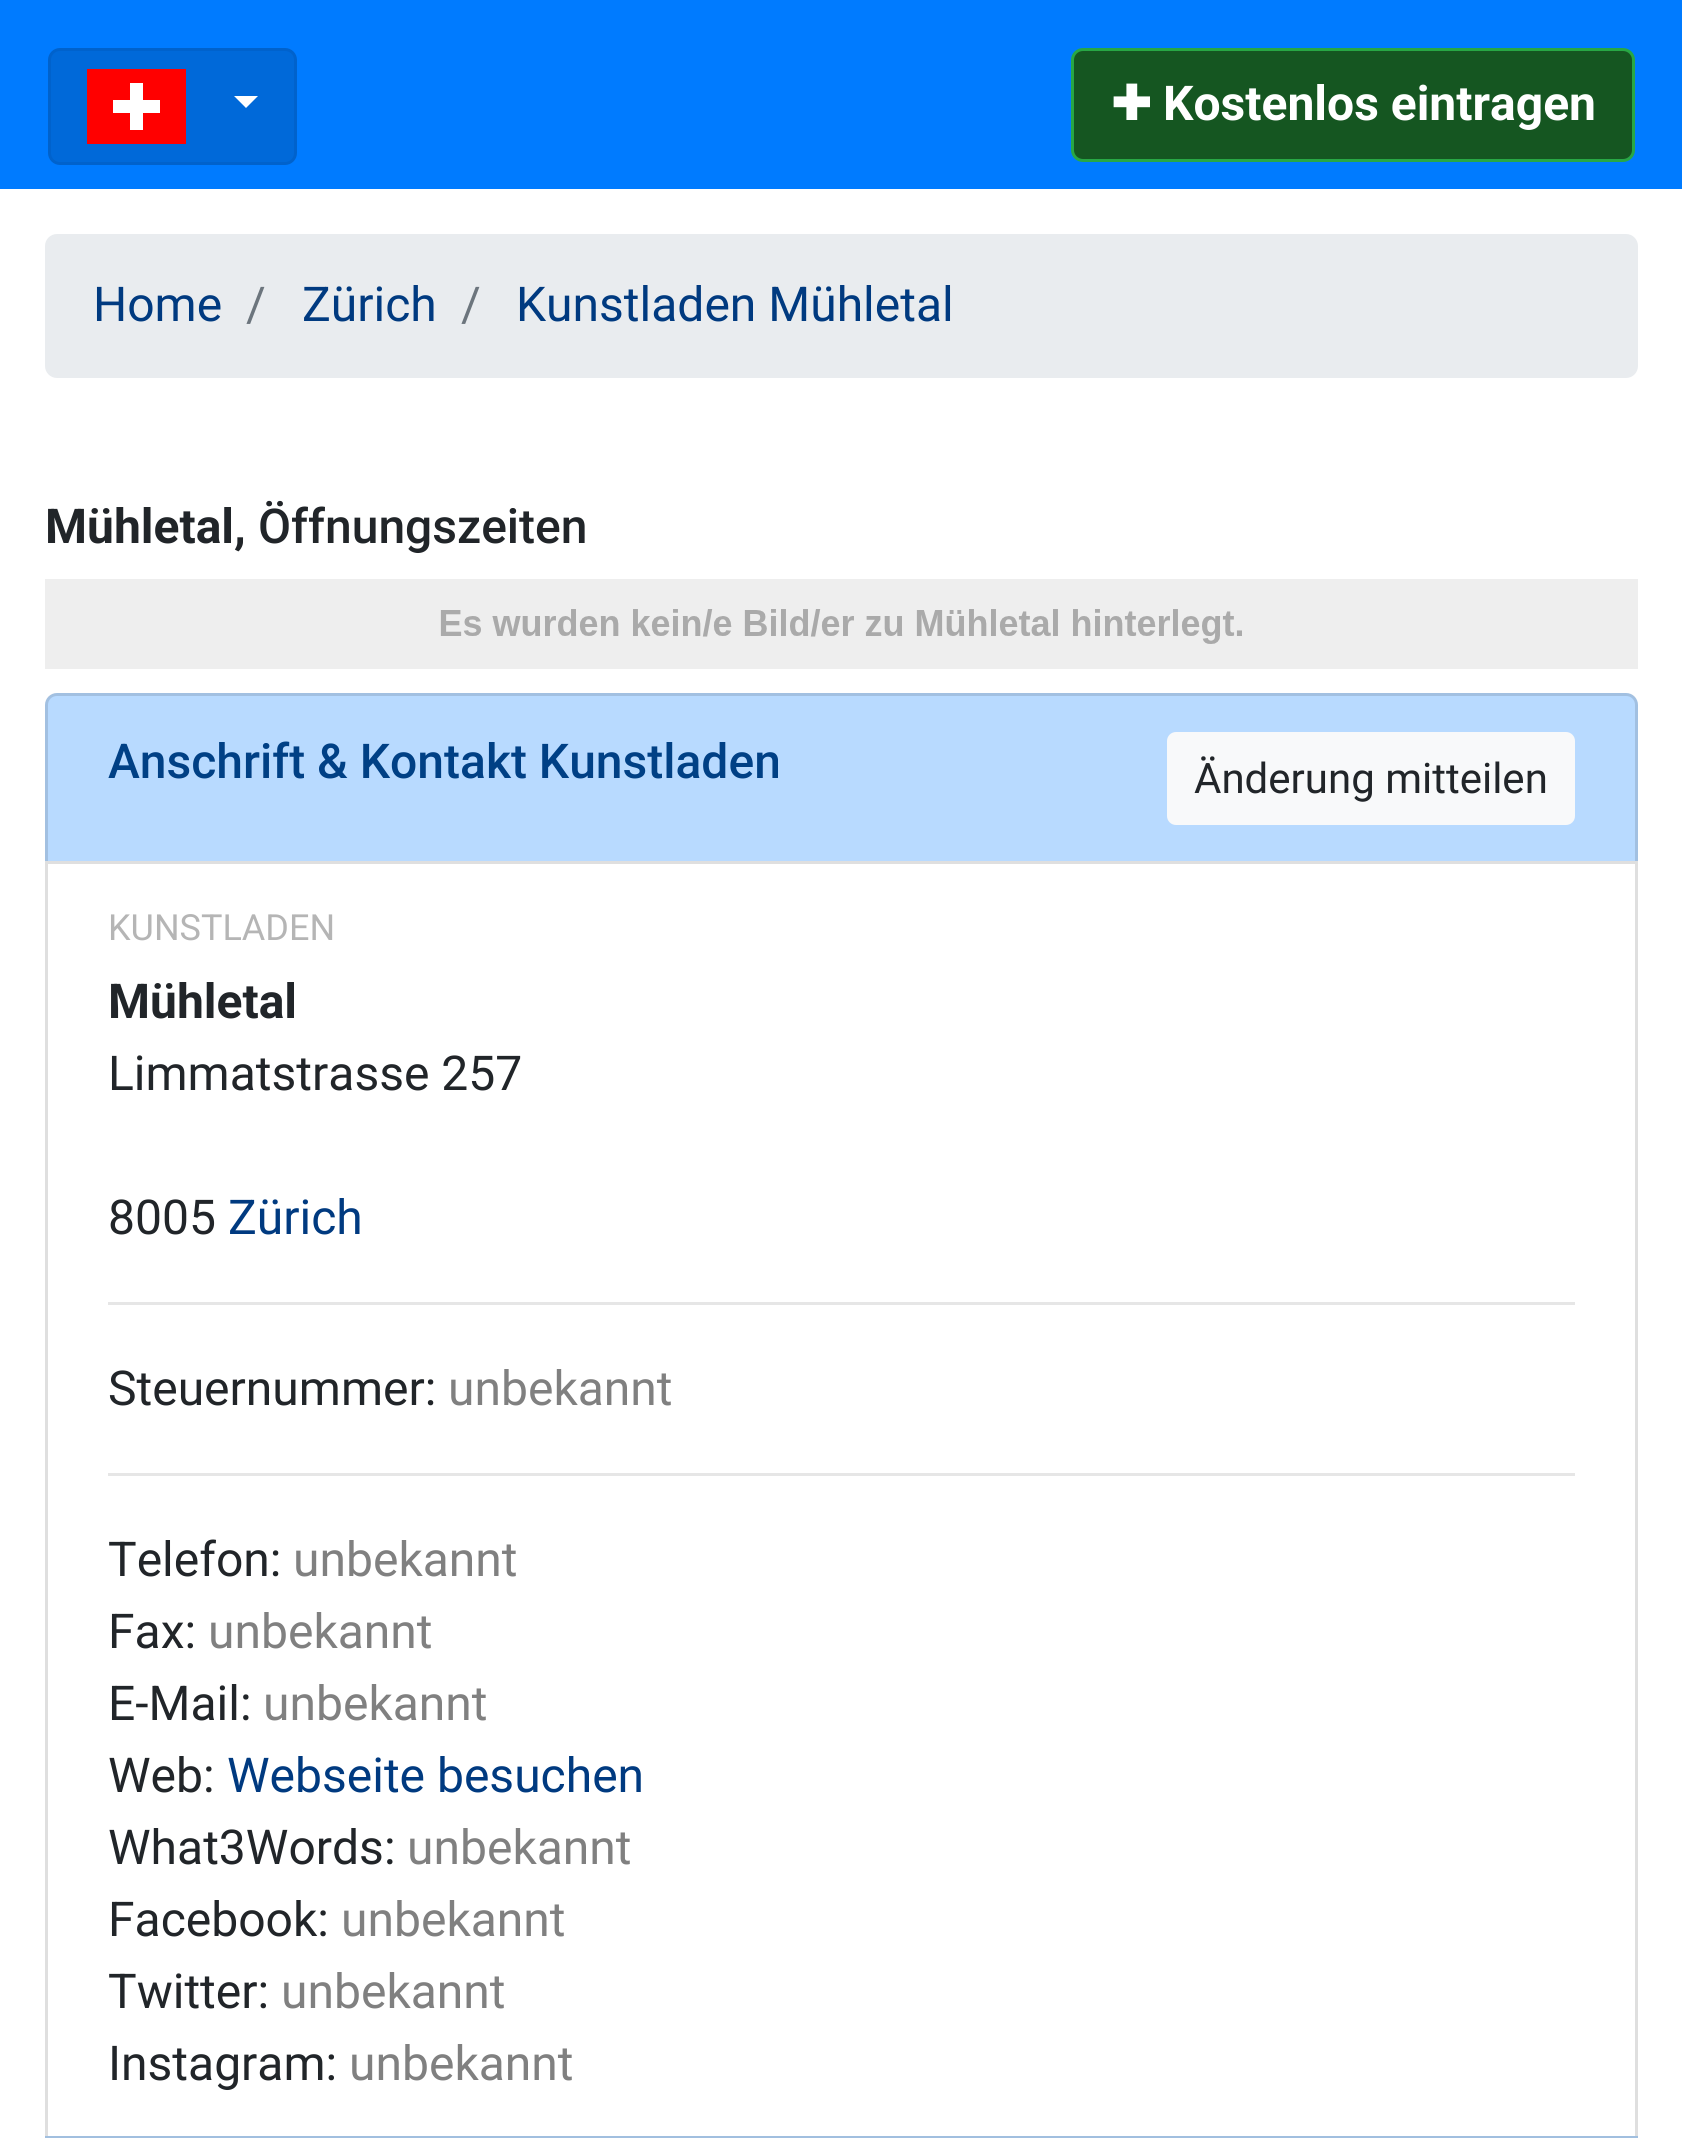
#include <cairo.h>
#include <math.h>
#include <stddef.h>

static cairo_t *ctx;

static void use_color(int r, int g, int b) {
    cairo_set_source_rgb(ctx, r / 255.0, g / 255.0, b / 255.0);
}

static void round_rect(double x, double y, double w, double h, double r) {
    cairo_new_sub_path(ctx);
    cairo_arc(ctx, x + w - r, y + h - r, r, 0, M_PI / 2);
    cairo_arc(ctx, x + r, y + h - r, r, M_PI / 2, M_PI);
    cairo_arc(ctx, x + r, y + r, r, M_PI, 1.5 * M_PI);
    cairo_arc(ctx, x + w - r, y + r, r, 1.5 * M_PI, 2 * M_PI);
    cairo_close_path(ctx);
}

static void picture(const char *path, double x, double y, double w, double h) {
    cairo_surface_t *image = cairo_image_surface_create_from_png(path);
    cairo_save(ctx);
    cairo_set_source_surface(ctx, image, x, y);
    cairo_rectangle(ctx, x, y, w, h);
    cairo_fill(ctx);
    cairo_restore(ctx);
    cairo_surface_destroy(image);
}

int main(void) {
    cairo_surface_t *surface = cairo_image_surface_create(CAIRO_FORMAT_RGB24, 1682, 2138);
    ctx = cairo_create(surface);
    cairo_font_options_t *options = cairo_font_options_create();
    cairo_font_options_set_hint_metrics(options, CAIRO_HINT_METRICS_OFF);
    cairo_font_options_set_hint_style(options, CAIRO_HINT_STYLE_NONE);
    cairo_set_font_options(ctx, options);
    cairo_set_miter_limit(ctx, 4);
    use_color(255, 255, 255);
    cairo_paint(ctx);
    use_color(0, 123, 255);
    cairo_rectangle(ctx, 0, 0, 1682, 189);
    cairo_fill(ctx);
    use_color(0, 105, 217);
    round_rect(49.5, 49.5, 246, 114, 10.5);
    cairo_fill_preserve(ctx);
    use_color(0, 98, 204);
    cairo_set_line_width(ctx, 3);
    cairo_stroke(ctx);
    use_color(255, 0, 0);
    cairo_rectangle(ctx, 87, 69, 99, 75);
    cairo_fill(ctx);
    use_color(255, 255, 255);
    cairo_rectangle(ctx, 113, 100, 47, 13);
    cairo_fill(ctx);
    cairo_rectangle(ctx, 130, 83, 13, 47);
    cairo_fill(ctx);
    cairo_new_path(ctx);
    cairo_move_to(ctx, 234, 96);
    cairo_line_to(ctx, 258, 96);
    cairo_line_to(ctx, 246, 108);
    cairo_close_path(ctx);
    cairo_fill(ctx);
    use_color(21, 86, 33);
    round_rect(1072.5, 49.5, 561, 111, 10.5);
    cairo_fill_preserve(ctx);
    use_color(40, 167, 69);
    cairo_stroke(ctx);
    cairo_select_font_face(ctx, "DejaVu Sans", CAIRO_FONT_SLANT_NORMAL, CAIRO_FONT_WEIGHT_BOLD);
    cairo_set_font_size(ctx, 48);
    use_color(255, 255, 255);
    cairo_move_to(ctx, 1111, 120);
    cairo_show_text(ctx, "✚");
    cairo_select_font_face(ctx, "Roboto", CAIRO_FONT_SLANT_NORMAL, CAIRO_FONT_WEIGHT_BOLD);
    cairo_move_to(ctx, 1163, 120);
    cairo_show_text(ctx, "Kostenlos eintragen");
    use_color(233, 236, 239);
    round_rect(45, 234, 1593, 144, 12);
    cairo_fill(ctx);
    cairo_select_font_face(ctx, "Roboto", CAIRO_FONT_SLANT_NORMAL, CAIRO_FONT_WEIGHT_NORMAL);
    use_color(0, 58, 128);
    cairo_move_to(ctx, 93, 321);
    cairo_show_text(ctx, "Home");
    use_color(108, 117, 125);
    cairo_move_to(ctx, 246, 321);
    cairo_show_text(ctx, "/");
    use_color(0, 58, 128);
    cairo_move_to(ctx, 302, 321);
    cairo_show_text(ctx, "Zürich");
    use_color(108, 117, 125);
    cairo_move_to(ctx, 461, 321);
    cairo_show_text(ctx, "/");
    use_color(0, 58, 128);
    cairo_move_to(ctx, 516, 321);
    cairo_show_text(ctx, "Kunstladen Mühletal");
    cairo_select_font_face(ctx, "Roboto", CAIRO_FONT_SLANT_NORMAL, CAIRO_FONT_WEIGHT_BOLD);
    use_color(33, 37, 41);
    cairo_move_to(ctx, 45, 543);
    cairo_show_text(ctx, "Mühletal,");
    cairo_select_font_face(ctx, "Roboto Medium", CAIRO_FONT_SLANT_NORMAL, CAIRO_FONT_WEIGHT_NORMAL);
    cairo_move_to(ctx, 258, 543);
    cairo_show_text(ctx, "Öffnungszeiten");
    picture("img1.png", 45, 579, 1593, 90);
    use_color(184, 218, 255);
    cairo_new_path(ctx);
    cairo_move_to(ctx, 57, 693);
    cairo_line_to(ctx, 1626, 693);
    cairo_curve_to(ctx, 1632.5, 693, 1638, 698.5, 1638, 705);
    cairo_line_to(ctx, 1638, 864);
    cairo_line_to(ctx, 45, 864);
    cairo_line_to(ctx, 45, 705);
    cairo_curve_to(ctx, 45, 698.5, 50.5, 693, 57, 693);
    cairo_close_path(ctx);
    cairo_fill(ctx);
    cairo_new_path(ctx);
    cairo_move_to(ctx, 57, 694.5);
    cairo_line_to(ctx, 1626, 694.5);
    cairo_curve_to(ctx, 1632, 694.5, 1636.5, 699, 1636.5, 705);
    cairo_line_to(ctx, 1636.5, 862.5);
    cairo_line_to(ctx, 46.5, 862.5);
    cairo_line_to(ctx, 46.5, 705);
    cairo_curve_to(ctx, 46.5, 699, 51, 694.5, 57, 694.5);
    cairo_close_path(ctx);
    cairo_set_source_rgba(ctx, 0, 0, 0, 0.12);
    cairo_stroke(ctx);
    use_color(0, 64, 133);
    cairo_move_to(ctx, 108, 778);
    cairo_show_text(ctx, "Anschrift & Kontakt Kunstladen");
    use_color(248, 249, 250);
    round_rect(1168.5, 733.5, 405, 90, 7.5);
    cairo_fill_preserve(ctx);
    cairo_stroke(ctx);
    cairo_select_font_face(ctx, "Roboto", CAIRO_FONT_SLANT_NORMAL, CAIRO_FONT_WEIGHT_NORMAL);
    cairo_set_font_size(ctx, 42);
    use_color(33, 37, 41);
    cairo_move_to(ctx, 1194, 793);
    cairo_show_text(ctx, "Änderung mitteilen");
    cairo_rectangle(ctx, 46.5, 862.5, 1590, 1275);
    use_color(223, 223, 223);
    cairo_stroke(ctx);
    cairo_set_font_size(ctx, 36);
    use_color(181, 181, 181);
    cairo_move_to(ctx, 108, 940);
    cairo_show_text(ctx, "KUNSTLADEN");
    cairo_select_font_face(ctx, "Roboto", CAIRO_FONT_SLANT_NORMAL, CAIRO_FONT_WEIGHT_BOLD);
    cairo_set_font_size(ctx, 48);
    use_color(33, 37, 41);
    cairo_move_to(ctx, 108, 1018);
    cairo_show_text(ctx, "Mühletal");
    cairo_select_font_face(ctx, "Roboto", CAIRO_FONT_SLANT_NORMAL, CAIRO_FONT_WEIGHT_NORMAL);
    cairo_move_to(ctx, 108, 1090);
    cairo_show_text(ctx, "Limmatstrasse 257");
    cairo_move_to(ctx, 108, 1234);
    cairo_show_text(ctx, "8005");
    use_color(0, 58, 128);
    cairo_move_to(ctx, 228, 1234);
    cairo_show_text(ctx, "Zürich");
    use_color(230, 230, 230);
    cairo_rectangle(ctx, 108, 1302, 1467, 3);
    cairo_fill(ctx);
    use_color(33, 37, 41);
    cairo_move_to(ctx, 108, 1405);
    cairo_show_text(ctx, "Steuernummer:");
    use_color(128, 128, 128);
    cairo_move_to(ctx, 448, 1405);
    cairo_show_text(ctx, "unbekannt");
    use_color(230, 230, 230);
    cairo_rectangle(ctx, 108, 1473, 1467, 3);
    cairo_fill(ctx);
    use_color(33, 37, 41);
    cairo_move_to(ctx, 108, 1576);
    cairo_show_text(ctx, "Telefon:");
    use_color(128, 128, 128);
    cairo_move_to(ctx, 293, 1576);
    cairo_show_text(ctx, "unbekannt");
    use_color(33, 37, 41);
    cairo_move_to(ctx, 108, 1648);
    cairo_show_text(ctx, "Fax:");
    use_color(128, 128, 128);
    cairo_move_to(ctx, 208, 1648);
    cairo_show_text(ctx, "unbekannt");
    use_color(33, 37, 41);
    cairo_move_to(ctx, 108, 1720);
    cairo_show_text(ctx, "E-Mail:");
    use_color(128, 128, 128);
    cairo_move_to(ctx, 263, 1720);
    cairo_show_text(ctx, "unbekannt");
    use_color(33, 37, 41);
    cairo_move_to(ctx, 108, 1792);
    cairo_show_text(ctx, "Web:");
    use_color(0, 58, 128);
    cairo_move_to(ctx, 227, 1792);
    cairo_show_text(ctx, "Webseite besuchen");
    use_color(33, 37, 41);
    cairo_move_to(ctx, 108, 1864);
    cairo_show_text(ctx, "What3Words:");
    use_color(128, 128, 128);
    cairo_move_to(ctx, 407, 1864);
    cairo_show_text(ctx, "unbekannt");
    use_color(33, 37, 41);
    cairo_move_to(ctx, 108, 1936);
    cairo_show_text(ctx, "Facebook:");
    use_color(128, 128, 128);
    cairo_move_to(ctx, 341, 1936);
    cairo_show_text(ctx, "unbekannt");
    use_color(33, 37, 41);
    cairo_move_to(ctx, 108, 2008);
    cairo_show_text(ctx, "Twitter:");
    use_color(128, 128, 128);
    cairo_move_to(ctx, 281, 2008);
    cairo_show_text(ctx, "unbekannt");
    use_color(33, 37, 41);
    cairo_move_to(ctx, 108, 2080);
    cairo_show_text(ctx, "Instagram:");
    use_color(128, 128, 128);
    cairo_move_to(ctx, 349, 2080);
    cairo_show_text(ctx, "unbekannt");
    cairo_rectangle(ctx, 46.5, 2137.5, 1590, 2);
    use_color(161, 191, 223);
    cairo_stroke(ctx);
    cairo_surface_write_to_png(surface, "result.png");
    cairo_font_options_destroy(options);
    cairo_destroy(ctx);
    cairo_surface_destroy(surface);
    return 0;
}
